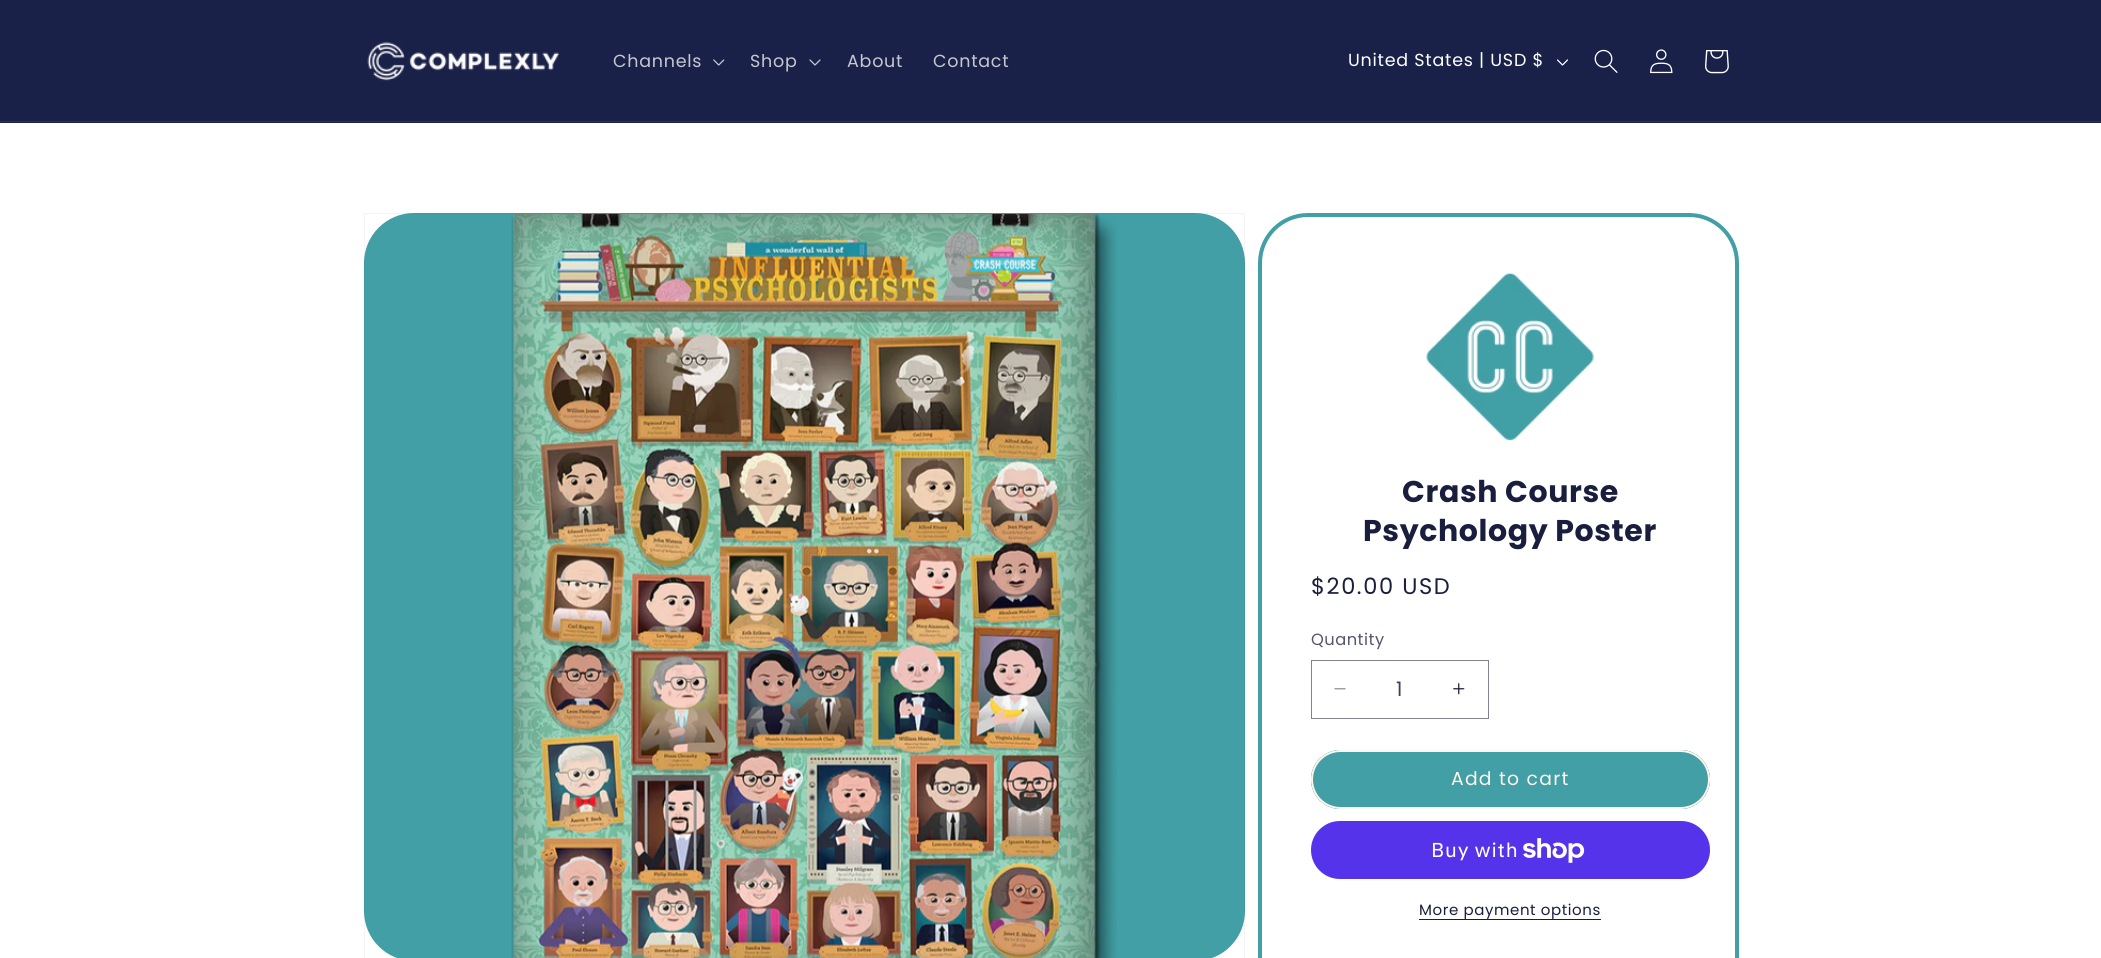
#include <cairo.h>
#include <math.h>
#include <stddef.h>

static cairo_t *ctx;

static void use_color(int r, int g, int b) {
    cairo_set_source_rgb(ctx, r / 255.0, g / 255.0, b / 255.0);
}

static void spaced_text(double x, double y, const char *s, double letter, double word) {
    cairo_move_to(ctx, x, y);
    while (*s) {
        char ch[5] = {0};
        int n = 0;
        do ch[n++] = *s++; while ((*s & 0xC0) == 0x80);
        cairo_show_text(ctx, ch);
        cairo_rel_move_to(ctx, letter + word * (*ch == ' '), 0);
    }
}

static void round_rect(double x, double y, double w, double h, double r) {
    cairo_new_sub_path(ctx);
    cairo_arc(ctx, x + w - r, y + h - r, r, 0, M_PI / 2);
    cairo_arc(ctx, x + r, y + h - r, r, M_PI / 2, M_PI);
    cairo_arc(ctx, x + r, y + r, r, M_PI, 1.5 * M_PI);
    cairo_arc(ctx, x + w - r, y + r, r, 1.5 * M_PI, 2 * M_PI);
    cairo_close_path(ctx);
}

static void picture(const char *path, double x, double y, double w, double h) {
    cairo_surface_t *image = cairo_image_surface_create_from_png(path);
    cairo_save(ctx);
    cairo_set_source_surface(ctx, image, x, y);
    cairo_rectangle(ctx, x, y, w, h);
    cairo_fill(ctx);
    cairo_restore(ctx);
    cairo_surface_destroy(image);
}

int main(void) {
    cairo_surface_t *surface = cairo_image_surface_create(CAIRO_FORMAT_RGB24, 2101, 958);
    ctx = cairo_create(surface);
    cairo_font_options_t *options = cairo_font_options_create();
    cairo_font_options_set_hint_metrics(options, CAIRO_HINT_METRICS_OFF);
    cairo_font_options_set_hint_style(options, CAIRO_HINT_STYLE_NONE);
    cairo_set_font_options(ctx, options);
    cairo_set_miter_limit(ctx, 4);
    use_color(255, 255, 255);
    cairo_paint(ctx);
    use_color(26, 33, 72);
    cairo_rectangle(ctx, 0, 0, 2101, 123);
    cairo_fill(ctx);
    use_color(44, 51, 87);
    cairo_rectangle(ctx, 0, 121, 2101, 1);
    cairo_fill(ctx);
    picture("img1.png", 367, 42, 192, 39);
    cairo_select_font_face(ctx, "Poppins", CAIRO_FONT_SLANT_NORMAL, CAIRO_FONT_WEIGHT_NORMAL);
    cairo_set_font_size(ctx, 17.5);
    use_color(198, 200, 209);
    spaced_text(613, 67, "Channels", 0.75, 0);
    picture("img2.png", 713, 59, 12, 7);
    spaced_text(750, 67, "Shop", 0.75, 0);
    picture("img3.png", 809, 59, 12, 7);
    spaced_text(847, 67, "About", 0.75, 0);
    spaced_text(933, 67, "Contact", 0.75, 0);
    use_color(255, 255, 255);
    spaced_text(1348, 66, "United States | USD $", 0.75, 0);
    picture("img4.png", 1557, 59, 11, 7);
    picture("img5.png", 1594, 49, 24, 24);
    picture("img6.png", 1650, 49, 23, 25);
    picture("img7.png", 1705, 50, 24, 24);
    use_color(65, 159, 165);
    round_rect(364, 213, 881, 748, 50);
    cairo_fill(ctx);
    cairo_rectangle(ctx, 364.5, 213.5, 880, 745);
    cairo_set_source_rgba(ctx, 0.098, 0.118, 0.243, 0.05);
    cairo_set_line_width(ctx, 1);
    cairo_stroke(ctx);
    picture("img8.png", 511, 214, 606, 744);
    round_rect(1260, 215, 477, 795, 48);
    use_color(65, 159, 165);
    cairo_set_line_width(ctx, 4);
    cairo_stroke(ctx);
    picture("img9.png", 1426, 272, 168, 169);
    cairo_select_font_face(ctx, "Poppins", CAIRO_FONT_SLANT_NORMAL, CAIRO_FONT_WEIGHT_BOLD);
    cairo_set_font_size(ctx, 30);
    use_color(25, 30, 62);
    spaced_text(1402, 502, "Crash Course", 0.6, 0);
    spaced_text(1363, 541, "Psychology Poster", 0.6, 0);
    cairo_select_font_face(ctx, "Poppins", CAIRO_FONT_SLANT_NORMAL, CAIRO_FONT_WEIGHT_NORMAL);
    cairo_set_font_size(ctx, 22.5);
    spaced_text(1311, 594, "$20.00 USD", 1.6, 0);
    cairo_set_font_size(ctx, 16.25);
    use_color(83, 86, 110);
    spaced_text(1311, 645, "Quantity", 0.5, 0);
    picture("img10.png", 1334, 688, 12, 2);
    picture("img11.png", 1453, 683, 12, 12);
    cairo_rectangle(ctx, 1311.5, 660.5, 177, 58);
    use_color(129, 131, 149);
    cairo_set_line_width(ctx, 1);
    cairo_stroke(ctx);
    cairo_set_font_size(ctx, 20);
    use_color(60, 64, 91);
    cairo_move_to(ctx, 1396, 696);
    cairo_show_text(ctx, "1");
    use_color(65, 159, 165);
    round_rect(1311, 750, 399, 59, 29.5);
    cairo_fill(ctx);
    round_rect(1311.5, 750.5, 398, 58, 29);
    cairo_stroke(ctx);
    round_rect(1312, 751, 397, 57, 28.5);
    use_color(255, 245, 237);
    cairo_set_line_width(ctx, 2);
    cairo_stroke(ctx);
    cairo_set_font_size(ctx, 18.75);
    spaced_text(1451, 785, "Add to cart", 1.25, 0);
    use_color(84, 51, 235);
    round_rect(1311, 821, 399, 58, 29);
    cairo_fill(ctx);
    cairo_select_font_face(ctx, "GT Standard", CAIRO_FONT_SLANT_NORMAL, CAIRO_FONT_WEIGHT_NORMAL);
    cairo_set_font_size(ctx, 20);
    use_color(255, 255, 255);
    spaced_text(1431, 857, "Buy with", 0.75, 0);
    picture("img12.png", 1523, 838, 62, 25);
    cairo_select_font_face(ctx, "Poppins", CAIRO_FONT_SLANT_NORMAL, CAIRO_FONT_WEIGHT_NORMAL);
    cairo_set_font_size(ctx, 15);
    use_color(25, 30, 62);
    spaced_text(1419, 915, "More payment options", 0.6, 0);
    cairo_rectangle(ctx, 1419, 919, 182, 1);
    cairo_fill(ctx);
    cairo_surface_write_to_png(surface, "result.png");
    cairo_font_options_destroy(options);
    cairo_destroy(ctx);
    cairo_surface_destroy(surface);
    return 0;
}
